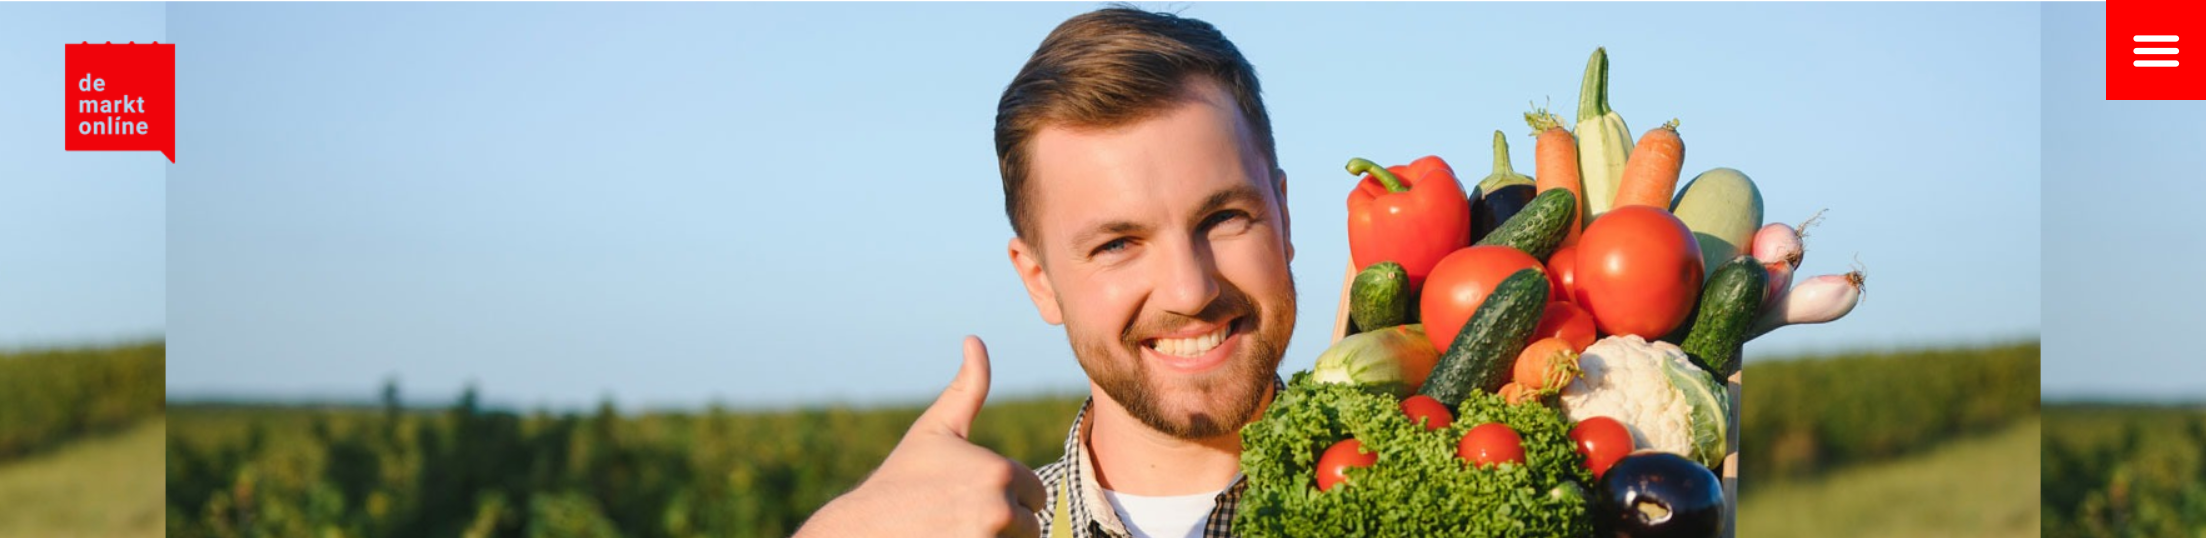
#include <cairo.h>
#include <math.h>
#include <stddef.h>

static cairo_t *ctx;

static void use_color(int r, int g, int b) {
    cairo_set_source_rgb(ctx, r / 255.0, g / 255.0, b / 255.0);
}

static void picture(const char *path, double x, double y, double w, double h) {
    cairo_surface_t *image = cairo_image_surface_create_from_png(path);
    cairo_save(ctx);
    cairo_set_source_surface(ctx, image, x, y);
    cairo_rectangle(ctx, x, y, w, h);
    cairo_fill(ctx);
    cairo_restore(ctx);
    cairo_surface_destroy(image);
}

int main(void) {
    cairo_surface_t *surface = cairo_image_surface_create(CAIRO_FORMAT_RGB24, 2206, 538);
    ctx = cairo_create(surface);
    cairo_font_options_t *options = cairo_font_options_create();
    cairo_font_options_set_hint_metrics(options, CAIRO_HINT_METRICS_OFF);
    cairo_font_options_set_hint_style(options, CAIRO_HINT_STYLE_NONE);
    cairo_set_font_options(ctx, options);
    cairo_set_miter_limit(ctx, 4);
    use_color(255, 255, 255);
    cairo_paint(ctx);
    picture("img3.png", 0, 1, 2206, 537);
    picture("img1.png", 64, 41, 112, 123);
    use_color(255, 0, 0);
    cairo_rectangle(ctx, 2106, 0, 100, 100);
    cairo_fill(ctx);
    picture("img2.png", 2133, 35, 47, 32);
    cairo_surface_write_to_png(surface, "result.png");
    cairo_font_options_destroy(options);
    cairo_destroy(ctx);
    cairo_surface_destroy(surface);
    return 0;
}
